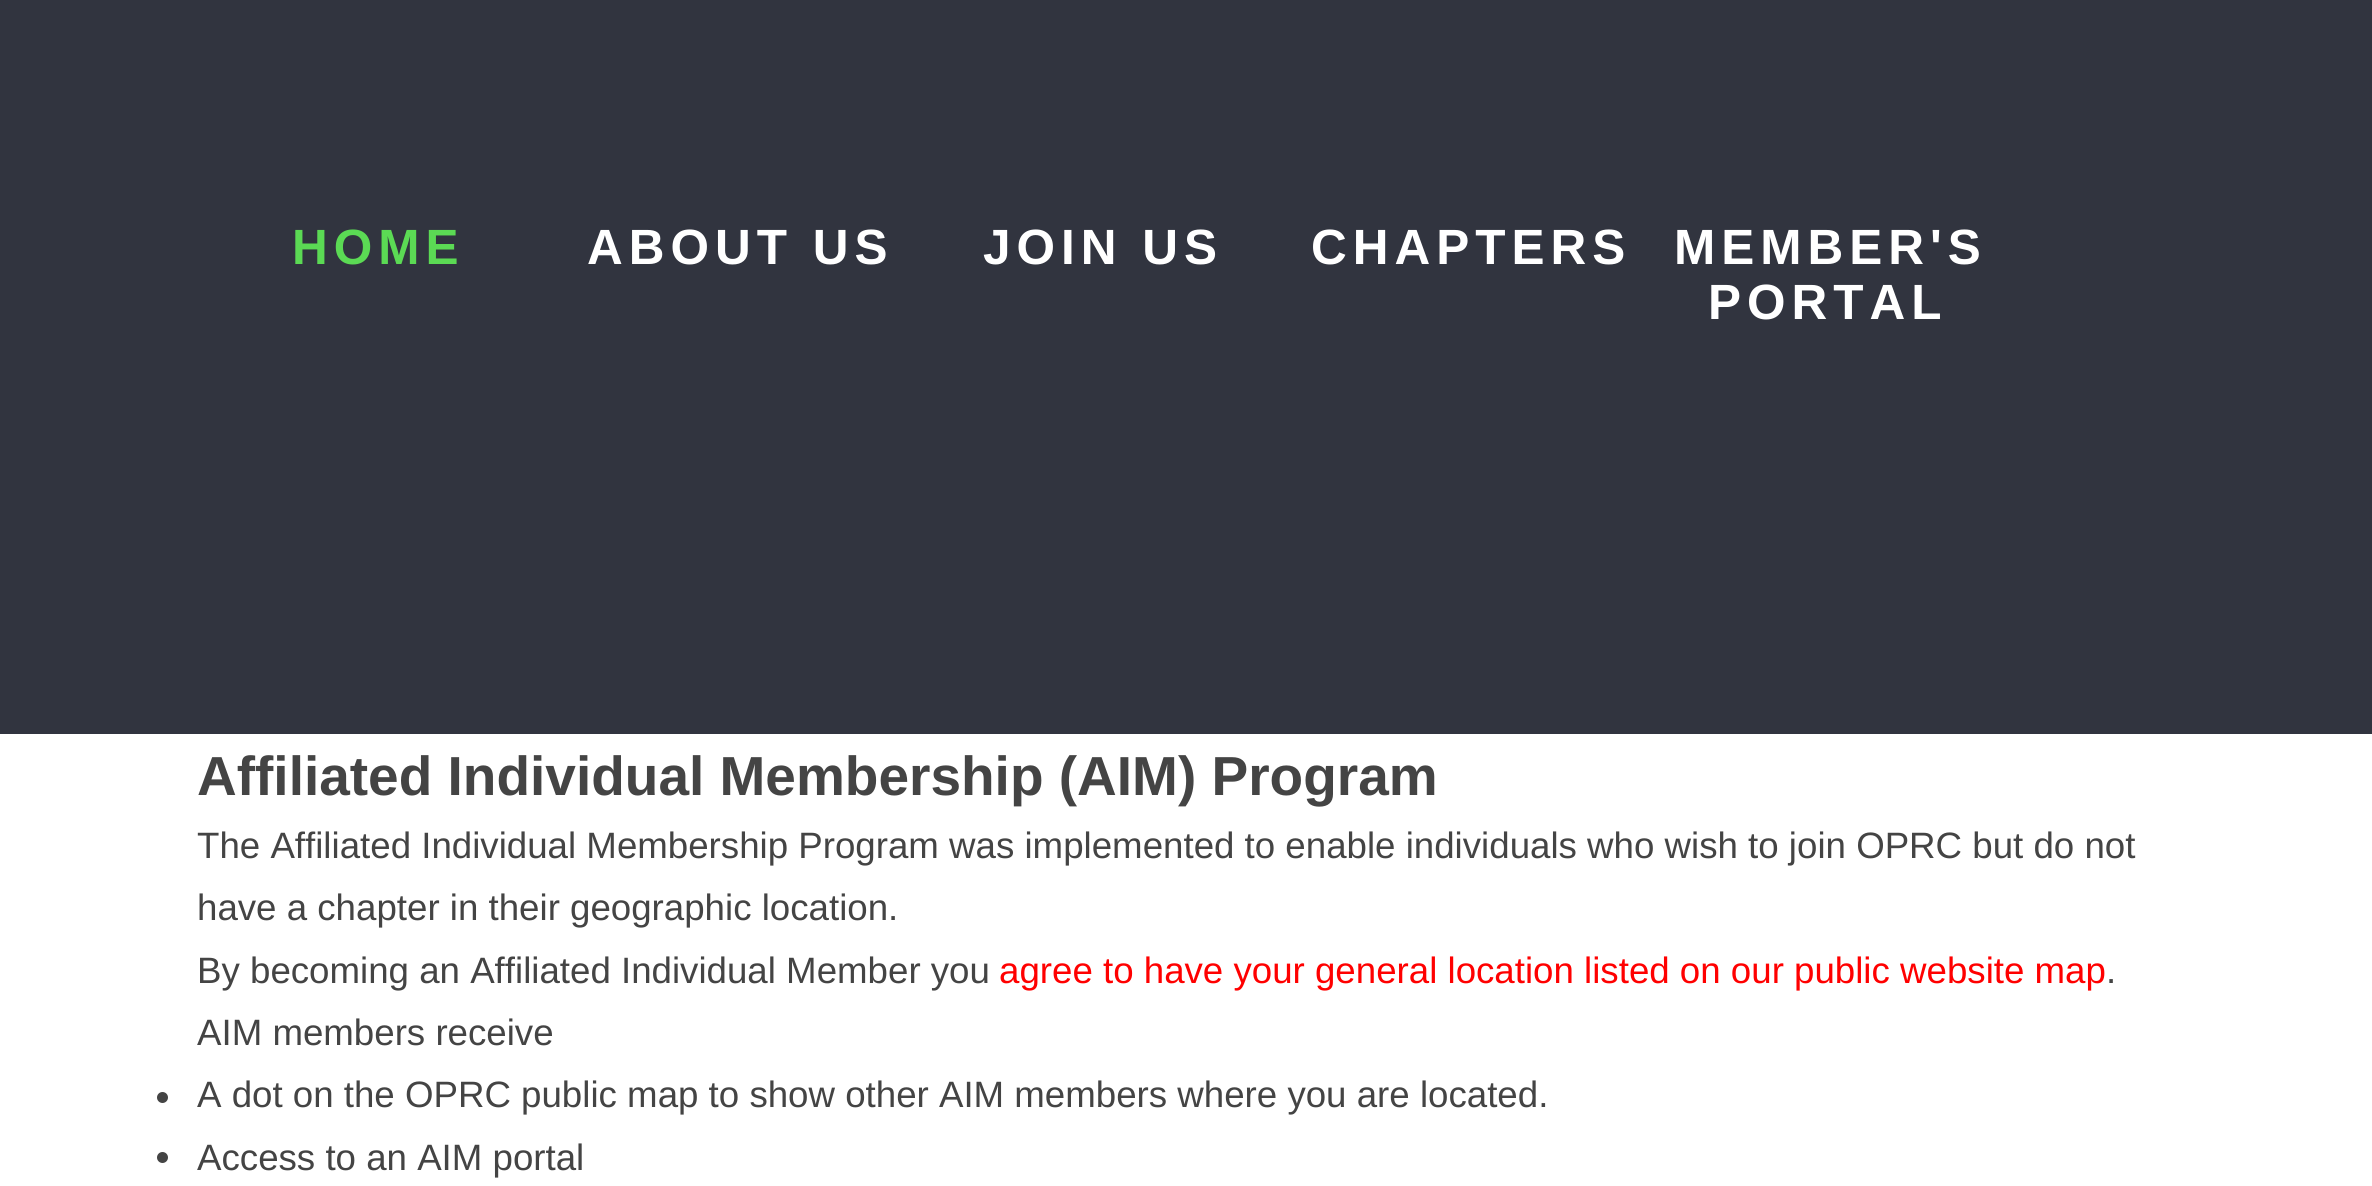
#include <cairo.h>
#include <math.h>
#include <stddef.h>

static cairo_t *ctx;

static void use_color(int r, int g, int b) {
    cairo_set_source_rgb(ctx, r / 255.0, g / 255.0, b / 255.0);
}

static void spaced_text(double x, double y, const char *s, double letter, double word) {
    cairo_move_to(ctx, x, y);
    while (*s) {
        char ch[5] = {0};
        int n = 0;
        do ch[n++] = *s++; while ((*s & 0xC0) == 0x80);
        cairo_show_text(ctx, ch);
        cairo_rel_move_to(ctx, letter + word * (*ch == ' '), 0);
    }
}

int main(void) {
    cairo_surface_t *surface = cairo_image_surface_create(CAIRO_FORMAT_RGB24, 2372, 1186);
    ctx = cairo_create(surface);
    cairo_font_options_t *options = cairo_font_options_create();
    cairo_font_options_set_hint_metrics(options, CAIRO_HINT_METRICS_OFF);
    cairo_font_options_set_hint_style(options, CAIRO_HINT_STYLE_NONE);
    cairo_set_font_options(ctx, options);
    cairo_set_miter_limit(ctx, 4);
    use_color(255, 255, 255);
    cairo_paint(ctx);
    use_color(49, 52, 63);
    cairo_rectangle(ctx, 0, 0, 2372, 734);
    cairo_fill(ctx);
    cairo_select_font_face(ctx, "Liberation Sans", CAIRO_FONT_SLANT_NORMAL, CAIRO_FONT_WEIGHT_BOLD);
    cairo_set_font_size(ctx, 49.5);
    use_color(91, 218, 84);
    spaced_text(292, 264, "HOME", 6, 0);
    use_color(255, 255, 255);
    spaced_text(587, 264, "ABOUT US", 6, 0);
    spaced_text(983, 264, "JOIN US", 6, 0);
    spaced_text(1311, 264, "CHAPTERS", 6, 0);
    spaced_text(1674, 264, "MEMBER'S", 6, 0);
    spaced_text(1708, 319, "PORTAL", 6, 0);
    cairo_set_font_size(ctx, 55);
    use_color(68, 68, 68);
    cairo_move_to(ctx, 197, 795);
    cairo_show_text(ctx, "Affiliated Individual Membership (AIM) Program");
    cairo_select_font_face(ctx, "Liberation Sans", CAIRO_FONT_SLANT_NORMAL, CAIRO_FONT_WEIGHT_NORMAL);
    cairo_set_font_size(ctx, 36.67);
    cairo_move_to(ctx, 197, 858);
    cairo_show_text(ctx, "The Affiliated Individual Membership Program was implemented to enable individuals who wish to join OPRC but do not");
    cairo_move_to(ctx, 197, 920);
    cairo_show_text(ctx, "have a chapter in their geographic location.");
    cairo_move_to(ctx, 197, 983);
    cairo_show_text(ctx, "By becoming an Affiliated Individual Member you");
    use_color(255, 0, 0);
    cairo_move_to(ctx, 999, 983);
    cairo_show_text(ctx, "agree to have your general location listed on our public website map");
    use_color(68, 68, 68);
    cairo_move_to(ctx, 2106, 983);
    cairo_show_text(ctx, ".");
    cairo_move_to(ctx, 197, 1045);
    cairo_show_text(ctx, "AIM members receive");
    cairo_new_path(ctx);
    cairo_arc(ctx, 162.5, 1097.5, 5.5, 0, 2 * M_PI);
    cairo_fill(ctx);
    cairo_move_to(ctx, 197, 1107);
    cairo_show_text(ctx, "A dot on the OPRC public map to show other AIM members where you are located.");
    cairo_new_path(ctx);
    cairo_arc(ctx, 162.5, 1157.5, 5.5, 0, 2 * M_PI);
    cairo_fill(ctx);
    cairo_move_to(ctx, 197, 1170);
    cairo_show_text(ctx, "Access to an AIM portal");
    cairo_surface_write_to_png(surface, "result.png");
    cairo_font_options_destroy(options);
    cairo_destroy(ctx);
    cairo_surface_destroy(surface);
    return 0;
}
